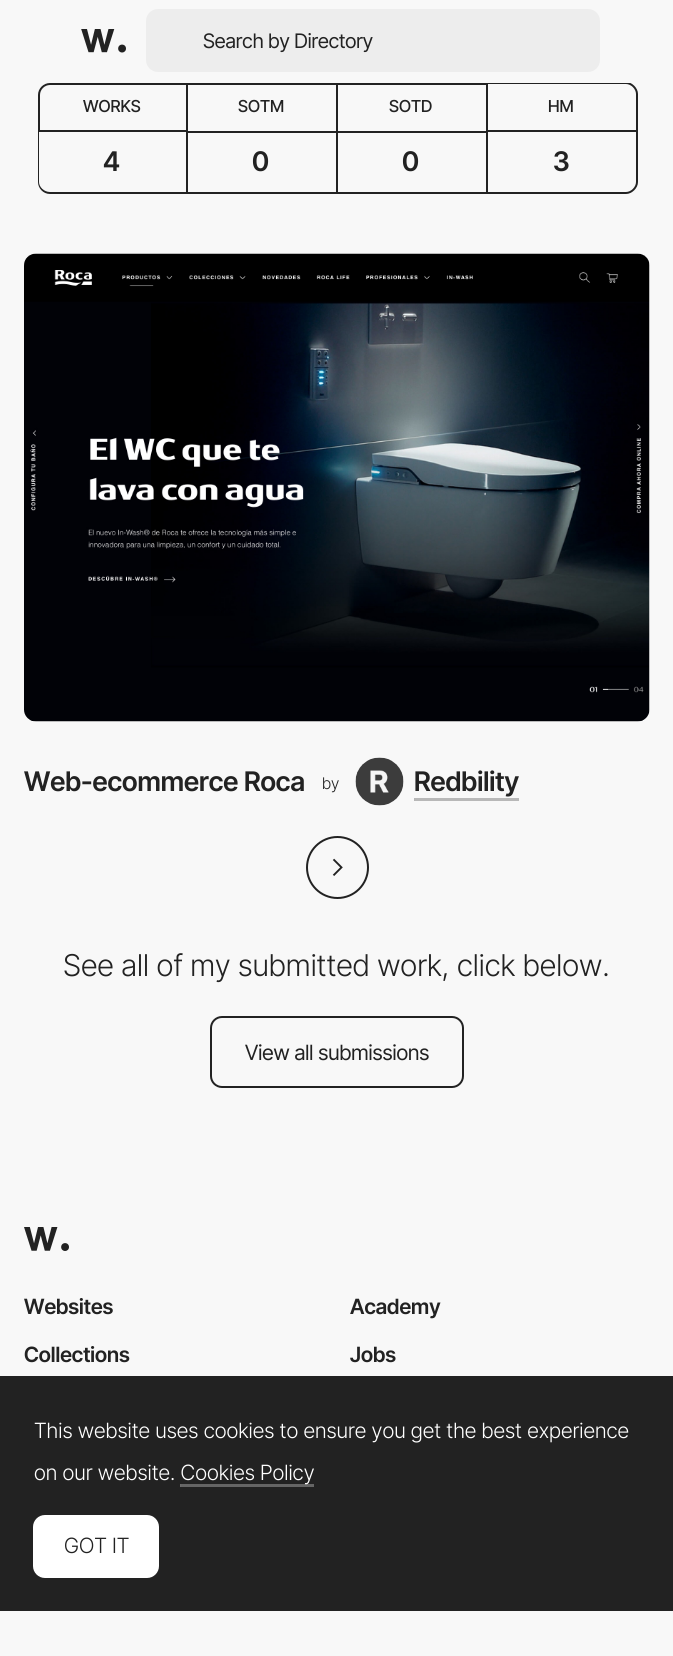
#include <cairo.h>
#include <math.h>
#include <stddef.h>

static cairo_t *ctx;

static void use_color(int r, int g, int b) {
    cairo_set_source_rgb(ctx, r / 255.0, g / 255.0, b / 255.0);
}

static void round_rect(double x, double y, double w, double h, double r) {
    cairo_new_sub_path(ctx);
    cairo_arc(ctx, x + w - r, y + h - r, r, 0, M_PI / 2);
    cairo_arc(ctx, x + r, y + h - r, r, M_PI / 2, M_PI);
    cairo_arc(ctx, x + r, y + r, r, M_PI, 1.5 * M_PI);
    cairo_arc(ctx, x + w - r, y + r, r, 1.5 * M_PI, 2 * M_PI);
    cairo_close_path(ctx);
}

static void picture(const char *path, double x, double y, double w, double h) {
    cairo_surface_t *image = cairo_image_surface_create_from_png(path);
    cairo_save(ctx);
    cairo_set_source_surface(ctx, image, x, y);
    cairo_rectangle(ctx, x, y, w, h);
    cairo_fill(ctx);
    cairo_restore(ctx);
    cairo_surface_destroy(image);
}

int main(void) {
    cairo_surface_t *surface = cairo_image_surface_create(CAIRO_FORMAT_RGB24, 673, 1656);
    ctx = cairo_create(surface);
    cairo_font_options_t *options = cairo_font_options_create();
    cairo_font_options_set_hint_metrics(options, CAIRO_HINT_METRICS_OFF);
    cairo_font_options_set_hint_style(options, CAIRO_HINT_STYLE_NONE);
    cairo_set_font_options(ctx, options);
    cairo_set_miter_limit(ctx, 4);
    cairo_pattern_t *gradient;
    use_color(248, 248, 248);
    cairo_paint(ctx);
    picture("img1.png", 81, 29, 45, 24);
    use_color(237, 237, 237);
    round_rect(146, 9, 454, 63, 12);
    cairo_fill(ctx);
    cairo_select_font_face(ctx, "Inter Tight", CAIRO_FONT_SLANT_NORMAL, CAIRO_FONT_WEIGHT_NORMAL);
    cairo_set_font_size(ctx, 20);
    use_color(34, 34, 34);
    cairo_move_to(ctx, 203, 48);
    cairo_show_text(ctx, "Search by Directory");
    cairo_new_path(ctx);
    cairo_move_to(ctx, 50, 84);
    cairo_line_to(ctx, 187, 84);
    cairo_line_to(ctx, 187, 131);
    cairo_line_to(ctx, 39, 131);
    cairo_line_to(ctx, 39, 95);
    cairo_curve_to(ctx, 39, 89, 44, 84, 50, 84);
    cairo_close_path(ctx);
    cairo_stroke(ctx);
    cairo_select_font_face(ctx, "Inter Tight Medium", CAIRO_FONT_SLANT_NORMAL, CAIRO_FONT_WEIGHT_NORMAL);
    cairo_set_font_size(ctx, 16.5);
    cairo_move_to(ctx, 83, 112);
    cairo_show_text(ctx, "WORKS");
    cairo_rectangle(ctx, 188, 83, 300, 2);
    cairo_fill(ctx);
    cairo_rectangle(ctx, 336, 83, 2, 49);
    cairo_fill(ctx);
    cairo_rectangle(ctx, 188, 131, 150, 2);
    cairo_fill(ctx);
    cairo_move_to(ctx, 238, 112);
    cairo_show_text(ctx, "SOTM");
    cairo_rectangle(ctx, 486, 83, 2, 49);
    cairo_fill(ctx);
    cairo_rectangle(ctx, 338, 131, 150, 2);
    cairo_fill(ctx);
    cairo_move_to(ctx, 389, 112);
    cairo_show_text(ctx, "SOTD");
    cairo_save(ctx);
    cairo_rectangle(ctx, 24, 83, 626, 111);
    cairo_clip(ctx);
    cairo_set_fill_rule(ctx, CAIRO_FILL_RULE_EVEN_ODD);
    cairo_new_path(ctx);
    cairo_move_to(ctx, 488, 82);
    cairo_line_to(ctx, 626, 82);
    cairo_curve_to(ctx, 632, 82, 638, 88, 638, 94);
    cairo_line_to(ctx, 638, 132);
    cairo_line_to(ctx, 488, 132);
    cairo_close_path(ctx);
    cairo_move_to(ctx, 488, 84);
    cairo_line_to(ctx, 626, 84);
    cairo_curve_to(ctx, 631, 84, 636, 89, 636, 94);
    cairo_line_to(ctx, 636, 130);
    cairo_line_to(ctx, 488, 130);
    cairo_close_path(ctx);
    cairo_fill(ctx);
    cairo_restore(ctx);
    cairo_move_to(ctx, 548, 112);
    cairo_show_text(ctx, "HM");
    cairo_set_fill_rule(ctx, CAIRO_FILL_RULE_EVEN_ODD);
    cairo_new_path(ctx);
    cairo_move_to(ctx, 38, 132);
    cairo_line_to(ctx, 188, 132);
    cairo_line_to(ctx, 188, 194);
    cairo_line_to(ctx, 50, 194);
    cairo_curve_to(ctx, 43, 194, 38, 188, 38, 182);
    cairo_close_path(ctx);
    cairo_move_to(ctx, 39, 132);
    cairo_line_to(ctx, 186, 132);
    cairo_line_to(ctx, 186, 192);
    cairo_line_to(ctx, 50, 192);
    cairo_curve_to(ctx, 44, 192, 39, 187, 39, 182);
    cairo_close_path(ctx);
    cairo_fill(ctx);
    cairo_select_font_face(ctx, "Inter Tight SemiBold", CAIRO_FONT_SLANT_NORMAL, CAIRO_FONT_WEIGHT_NORMAL);
    cairo_set_font_size(ctx, 27);
    cairo_move_to(ctx, 103, 171);
    cairo_show_text(ctx, "4");
    cairo_rectangle(ctx, 336, 132, 2, 62);
    cairo_fill(ctx);
    cairo_rectangle(ctx, 188, 192, 150, 2);
    cairo_fill(ctx);
    cairo_move_to(ctx, 252, 171);
    cairo_show_text(ctx, "0");
    cairo_rectangle(ctx, 486, 132, 2, 62);
    cairo_fill(ctx);
    cairo_rectangle(ctx, 338, 192, 150, 2);
    cairo_fill(ctx);
    cairo_move_to(ctx, 402, 171);
    cairo_show_text(ctx, "0");
    cairo_new_path(ctx);
    cairo_move_to(ctx, 488, 132);
    cairo_line_to(ctx, 638, 132);
    cairo_line_to(ctx, 638, 182);
    cairo_curve_to(ctx, 638, 188, 632, 194, 626, 194);
    cairo_line_to(ctx, 488, 194);
    cairo_close_path(ctx);
    cairo_move_to(ctx, 488, 132);
    cairo_line_to(ctx, 636, 132);
    cairo_line_to(ctx, 636, 182);
    cairo_curve_to(ctx, 636, 187, 631, 192, 626, 192);
    cairo_line_to(ctx, 488, 192);
    cairo_close_path(ctx);
    cairo_fill(ctx);
    cairo_move_to(ctx, 553, 171);
    cairo_show_text(ctx, "3");
    picture("img2.png", 24, 253, 626, 469);
    cairo_move_to(ctx, 24, 791);
    cairo_show_text(ctx, "Web-ecommerce Roca");
    cairo_select_font_face(ctx, "Inter Tight Light", CAIRO_FONT_SLANT_NORMAL, CAIRO_FONT_WEIGHT_NORMAL);
    cairo_set_font_size(ctx, 16);
    cairo_move_to(ctx, 322, 789);
    cairo_show_text(ctx, "by");
    picture("img3.png", 355, 757, 49, 49);
    cairo_select_font_face(ctx, "Inter Tight SemiBold", CAIRO_FONT_SLANT_NORMAL, CAIRO_FONT_WEIGHT_NORMAL);
    cairo_set_font_size(ctx, 27);
    cairo_move_to(ctx, 414, 791);
    cairo_show_text(ctx, "Redbility");
    gradient = cairo_pattern_create_linear(288, 800, 519, 800);
    cairo_pattern_add_color_stop_rgba(gradient, 0.45, 0.133, 0.133, 0.133, 1);
    cairo_pattern_add_color_stop_rgba(gradient, 0.55, 0.722, 0.722, 0.722, 1);
    cairo_set_source(ctx, gradient);
    cairo_pattern_destroy(gradient);
    cairo_rectangle(ctx, 414, 798, 105, 3);
    cairo_fill(ctx);
    cairo_arc(ctx, 337.5, 867.5, 30.5, 0, 2 * M_PI);
    use_color(34, 34, 34);
    cairo_stroke(ctx);
    picture("img4.png", 332, 858, 11, 18);
    cairo_select_font_face(ctx, "Inter Tight Light", CAIRO_FONT_SLANT_NORMAL, CAIRO_FONT_WEIGHT_NORMAL);
    cairo_set_font_size(ctx, 30);
    cairo_move_to(ctx, 63, 976);
    cairo_show_text(ctx, "See all of my submitted work, click below.");
    round_rect(211, 1017, 252, 70, 11);
    cairo_stroke(ctx);
    cairo_select_font_face(ctx, "Inter Tight", CAIRO_FONT_SLANT_NORMAL, CAIRO_FONT_WEIGHT_NORMAL);
    cairo_set_font_size(ctx, 21);
    cairo_move_to(ctx, 245, 1060);
    cairo_show_text(ctx, "View all submissions");
    picture("img5.png", 24, 1227, 45, 24);
    cairo_select_font_face(ctx, "Inter Tight SemiBold", CAIRO_FONT_SLANT_NORMAL, CAIRO_FONT_WEIGHT_NORMAL);
    cairo_move_to(ctx, 24, 1314);
    cairo_show_text(ctx, "Websites");
    cairo_move_to(ctx, 24, 1362);
    cairo_show_text(ctx, "Collections");
    cairo_move_to(ctx, 350, 1314);
    cairo_show_text(ctx, "Academy");
    cairo_move_to(ctx, 350, 1362);
    cairo_show_text(ctx, "Jobs");
    cairo_rectangle(ctx, 0, 1376, 673, 235);
    cairo_fill(ctx);
    cairo_select_font_face(ctx, "Inter Tight Light", CAIRO_FONT_SLANT_NORMAL, CAIRO_FONT_WEIGHT_NORMAL);
    use_color(255, 255, 255);
    cairo_move_to(ctx, 34, 1438);
    cairo_show_text(ctx, "This website uses cookies to ensure you get the best experience");
    cairo_move_to(ctx, 34, 1480);
    cairo_show_text(ctx, "on our website. Cookies Policy");
    gradient = cairo_pattern_create_linear(20, 1485, 314, 1485);
    cairo_pattern_add_color_stop_rgba(gradient, 0.45, 1, 1, 1, 1);
    cairo_pattern_add_color_stop_rgba(gradient, 0.55, 1, 1, 1, 0.3);
    cairo_set_source(ctx, gradient);
    cairo_pattern_destroy(gradient);
    cairo_rectangle(ctx, 180, 1484, 134, 3);
    cairo_fill(ctx);
    use_color(255, 255, 255);
    round_rect(33, 1515, 126, 63, 12);
    cairo_fill(ctx);
    use_color(34, 34, 34);
    cairo_move_to(ctx, 64, 1553);
    cairo_show_text(ctx, "GOT IT");
    cairo_surface_write_to_png(surface, "result.png");
    cairo_font_options_destroy(options);
    cairo_destroy(ctx);
    cairo_surface_destroy(surface);
    return 0;
}
